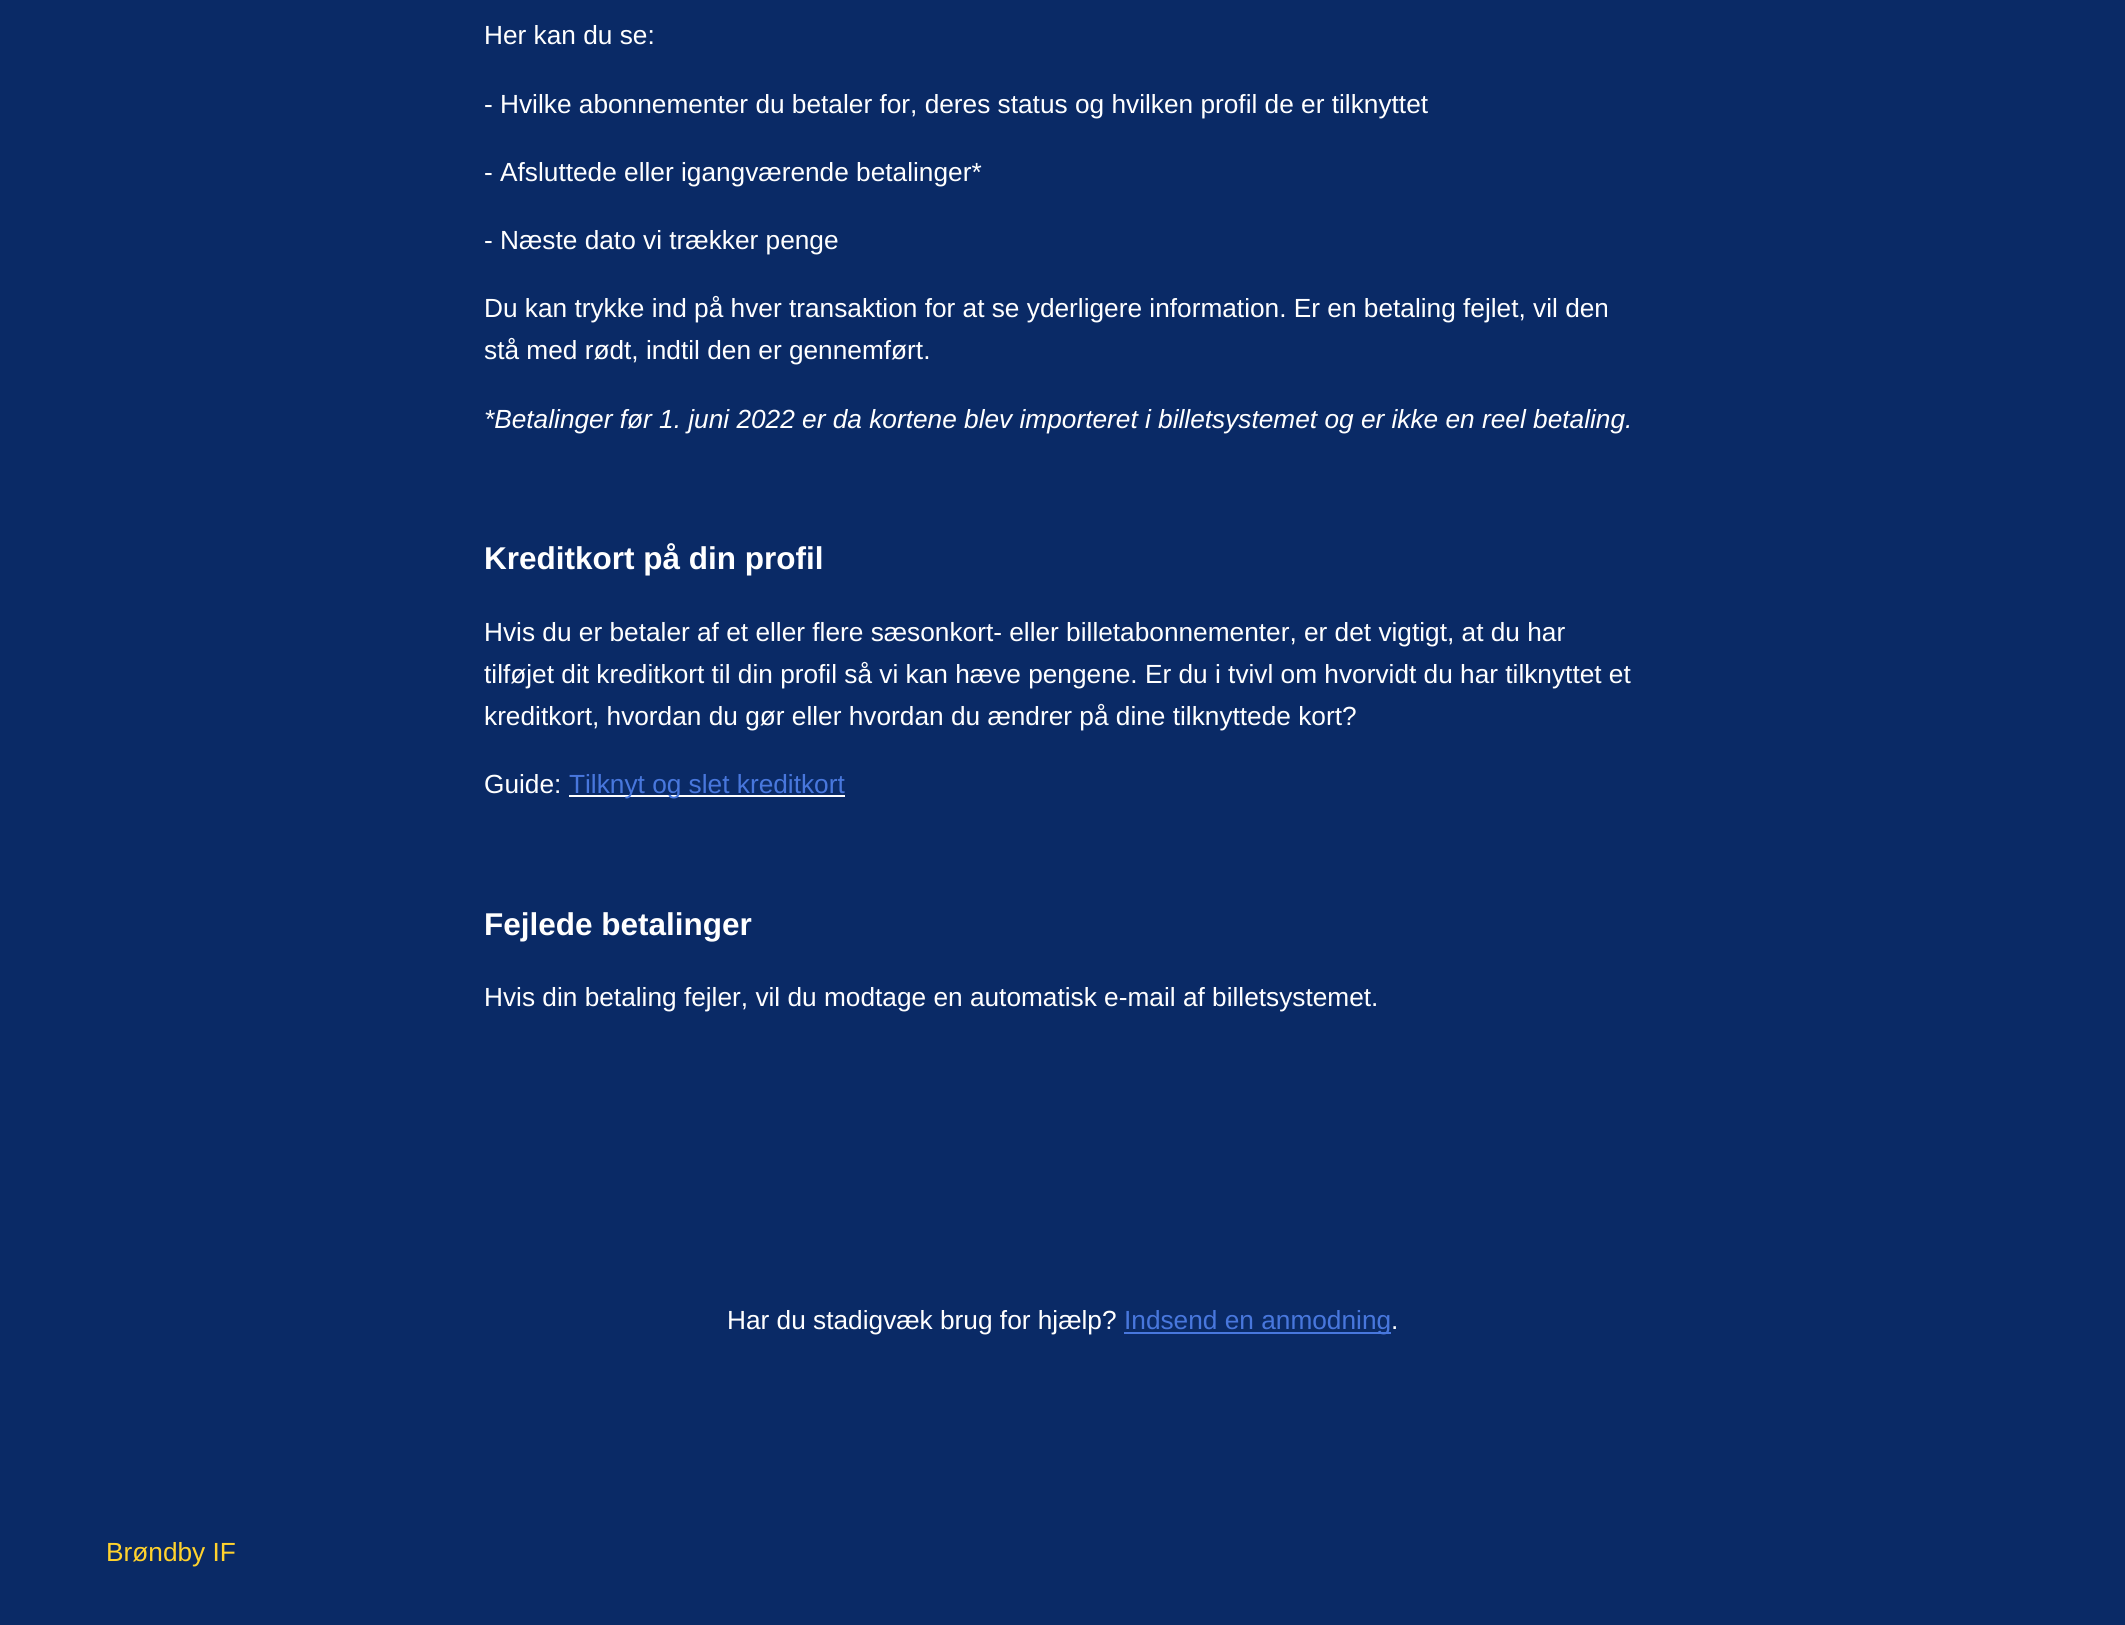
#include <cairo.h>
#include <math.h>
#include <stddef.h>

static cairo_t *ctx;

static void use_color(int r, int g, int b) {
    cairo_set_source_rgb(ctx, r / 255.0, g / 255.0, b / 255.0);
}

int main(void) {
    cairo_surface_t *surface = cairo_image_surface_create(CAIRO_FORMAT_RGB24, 2125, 1625);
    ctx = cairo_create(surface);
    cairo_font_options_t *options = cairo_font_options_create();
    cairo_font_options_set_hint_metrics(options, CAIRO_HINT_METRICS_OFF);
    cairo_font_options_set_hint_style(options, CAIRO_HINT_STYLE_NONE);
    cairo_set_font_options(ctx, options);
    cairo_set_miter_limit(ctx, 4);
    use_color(10, 42, 102);
    cairo_paint(ctx);
    cairo_select_font_face(ctx, "Liberation Sans", CAIRO_FONT_SLANT_NORMAL, CAIRO_FONT_WEIGHT_NORMAL);
    cairo_set_font_size(ctx, 26.25);
    use_color(255, 255, 255);
    cairo_move_to(ctx, 484, 44);
    cairo_show_text(ctx, "Her kan du se:");
    cairo_move_to(ctx, 484, 113);
    cairo_show_text(ctx, "- Hvilke abonnementer du betaler for, deres status og hvilken profil de er tilknyttet");
    cairo_move_to(ctx, 484, 181);
    cairo_show_text(ctx, "- Afsluttede eller igangværende betalinger*");
    cairo_move_to(ctx, 484, 249);
    cairo_show_text(ctx, "- Næste dato vi trækker penge");
    cairo_move_to(ctx, 484, 317);
    cairo_show_text(ctx, "Du kan trykke ind på hver transaktion for at se yderligere information. Er en betaling fejlet, vil den");
    cairo_move_to(ctx, 484, 359);
    cairo_show_text(ctx, "stå med rødt, indtil den er gennemført.");
    cairo_select_font_face(ctx, "Liberation Sans", CAIRO_FONT_SLANT_ITALIC, CAIRO_FONT_WEIGHT_NORMAL);
    cairo_move_to(ctx, 484, 428);
    cairo_show_text(ctx, "*Betalinger før 1. juni 2022 er da kortene blev importeret i billetsystemet og er ikke en reel betaling.");
    cairo_select_font_face(ctx, "Liberation Sans", CAIRO_FONT_SLANT_NORMAL, CAIRO_FONT_WEIGHT_BOLD);
    cairo_set_font_size(ctx, 31.5);
    cairo_move_to(ctx, 484, 569);
    cairo_show_text(ctx, "Kreditkort på din profil");
    cairo_select_font_face(ctx, "Liberation Sans", CAIRO_FONT_SLANT_NORMAL, CAIRO_FONT_WEIGHT_NORMAL);
    cairo_set_font_size(ctx, 26.25);
    cairo_move_to(ctx, 484, 641);
    cairo_show_text(ctx, "Hvis du er betaler af et eller flere sæsonkort- eller billetabonnementer, er det vigtigt, at du har");
    cairo_move_to(ctx, 484, 683);
    cairo_show_text(ctx, "tilføjet dit kreditkort til din profil så vi kan hæve pengene. Er du i tvivl om hvorvidt du har tilknyttet et");
    cairo_move_to(ctx, 484, 725);
    cairo_show_text(ctx, "kreditkort, hvordan du gør eller hvordan du ændrer på dine tilknyttede kort?");
    cairo_move_to(ctx, 484, 793);
    cairo_show_text(ctx, "Guide:");
    cairo_rectangle(ctx, 569, 795, 276, 2);
    cairo_fill(ctx);
    use_color(72, 119, 221);
    cairo_move_to(ctx, 569, 793);
    cairo_show_text(ctx, "Tilknyt og slet kreditkort");
    cairo_select_font_face(ctx, "Liberation Sans", CAIRO_FONT_SLANT_NORMAL, CAIRO_FONT_WEIGHT_BOLD);
    cairo_set_font_size(ctx, 31.5);
    use_color(255, 255, 255);
    cairo_move_to(ctx, 484, 935);
    cairo_show_text(ctx, "Fejlede betalinger");
    cairo_select_font_face(ctx, "Liberation Sans", CAIRO_FONT_SLANT_NORMAL, CAIRO_FONT_WEIGHT_NORMAL);
    cairo_set_font_size(ctx, 26.25);
    cairo_move_to(ctx, 484, 1006);
    cairo_show_text(ctx, "Hvis din betaling fejler, vil du modtage en automatisk e-mail af billetsystemet.");
    cairo_move_to(ctx, 727, 1329);
    cairo_show_text(ctx, "Har du stadigvæk brug for hjælp?");
    use_color(72, 119, 221);
    cairo_rectangle(ctx, 1124, 1332, 267, 2);
    cairo_fill(ctx);
    cairo_move_to(ctx, 1124, 1329);
    cairo_show_text(ctx, "Indsend en anmodning");
    use_color(255, 255, 255);
    cairo_move_to(ctx, 1391, 1329);
    cairo_show_text(ctx, ".");
    use_color(255, 210, 45);
    cairo_move_to(ctx, 106, 1561);
    cairo_show_text(ctx, "Brøndby IF");
    cairo_surface_write_to_png(surface, "result.png");
    cairo_font_options_destroy(options);
    cairo_destroy(ctx);
    cairo_surface_destroy(surface);
    return 0;
}
